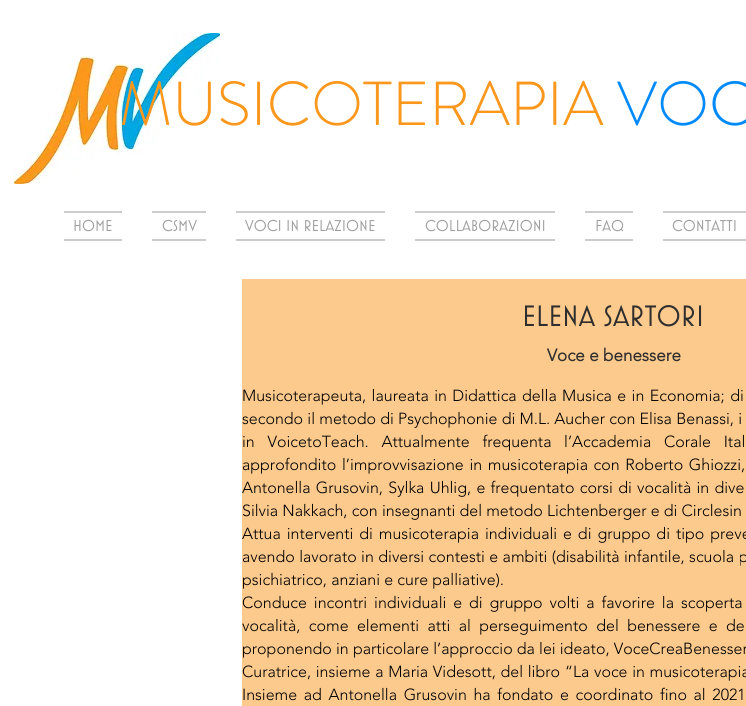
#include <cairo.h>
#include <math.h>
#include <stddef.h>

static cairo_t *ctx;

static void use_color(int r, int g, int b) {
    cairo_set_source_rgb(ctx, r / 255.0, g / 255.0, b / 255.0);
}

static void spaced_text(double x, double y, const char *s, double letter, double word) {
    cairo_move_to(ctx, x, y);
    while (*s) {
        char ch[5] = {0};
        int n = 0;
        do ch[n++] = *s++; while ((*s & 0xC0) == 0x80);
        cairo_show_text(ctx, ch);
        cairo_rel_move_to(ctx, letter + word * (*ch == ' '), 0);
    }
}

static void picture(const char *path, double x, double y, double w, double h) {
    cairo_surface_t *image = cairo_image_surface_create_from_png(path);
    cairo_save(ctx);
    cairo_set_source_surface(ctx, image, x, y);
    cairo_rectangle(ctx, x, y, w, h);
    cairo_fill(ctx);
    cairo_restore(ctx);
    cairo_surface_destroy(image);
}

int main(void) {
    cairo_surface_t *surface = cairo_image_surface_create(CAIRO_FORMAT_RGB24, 746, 706);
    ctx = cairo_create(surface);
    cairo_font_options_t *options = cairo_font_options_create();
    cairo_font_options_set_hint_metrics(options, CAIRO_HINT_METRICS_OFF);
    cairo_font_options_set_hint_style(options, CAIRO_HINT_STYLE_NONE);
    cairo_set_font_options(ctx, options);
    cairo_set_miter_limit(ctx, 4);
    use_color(255, 255, 255);
    cairo_paint(ctx);
    picture("img1.png", 14, 33, 206, 151);
    cairo_select_font_face(ctx, "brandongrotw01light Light", CAIRO_FONT_SLANT_NORMAL, CAIRO_FONT_WEIGHT_NORMAL);
    cairo_set_font_size(ctx, 62);
    use_color(251, 151, 28);
    cairo_move_to(ctx, 119, 125);
    cairo_show_text(ctx, "MUSICOTERAPIA");
    use_color(0, 138, 252);
    cairo_move_to(ctx, 617, 125);
    cairo_show_text(ctx, "VOC");
    use_color(204, 204, 204);
    cairo_rectangle(ctx, 64, 211, 58, 2);
    cairo_fill(ctx);
    cairo_rectangle(ctx, 64, 239, 58, 2);
    cairo_fill(ctx);
    cairo_select_font_face(ctx, "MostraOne", CAIRO_FONT_SLANT_NORMAL, CAIRO_FONT_WEIGHT_NORMAL);
    cairo_set_font_size(ctx, 16);
    use_color(158, 158, 158);
    cairo_move_to(ctx, 73, 231);
    cairo_show_text(ctx, "HOME");
    use_color(204, 204, 204);
    cairo_rectangle(ctx, 152, 211, 54, 2);
    cairo_fill(ctx);
    cairo_rectangle(ctx, 152, 239, 54, 2);
    cairo_fill(ctx);
    use_color(158, 158, 158);
    cairo_move_to(ctx, 162, 231);
    cairo_show_text(ctx, "CSMV");
    use_color(204, 204, 204);
    cairo_rectangle(ctx, 236, 211, 149, 2);
    cairo_fill(ctx);
    cairo_rectangle(ctx, 236, 239, 149, 2);
    cairo_fill(ctx);
    use_color(158, 158, 158);
    cairo_move_to(ctx, 245, 231);
    cairo_show_text(ctx, "VOCI IN RELAZIONE");
    use_color(204, 204, 204);
    cairo_rectangle(ctx, 415, 211, 140, 2);
    cairo_fill(ctx);
    cairo_rectangle(ctx, 415, 239, 140, 2);
    cairo_fill(ctx);
    use_color(158, 158, 158);
    cairo_move_to(ctx, 425, 231);
    cairo_show_text(ctx, "COLLABORAZIONI");
    use_color(204, 204, 204);
    cairo_rectangle(ctx, 585, 211, 48, 2);
    cairo_fill(ctx);
    cairo_rectangle(ctx, 585, 239, 48, 2);
    cairo_fill(ctx);
    use_color(158, 158, 158);
    cairo_move_to(ctx, 595, 231);
    cairo_show_text(ctx, "FAQ");
    use_color(204, 204, 204);
    cairo_rectangle(ctx, 663, 211, 83, 2);
    cairo_fill(ctx);
    cairo_rectangle(ctx, 663, 239, 83, 2);
    cairo_fill(ctx);
    use_color(158, 158, 158);
    cairo_move_to(ctx, 672, 231);
    cairo_show_text(ctx, "CONTATTI");
    use_color(253, 202, 141);
    cairo_rectangle(ctx, 242, 279, 504, 427);
    cairo_fill(ctx);
    cairo_set_font_size(ctx, 30);
    use_color(47, 46, 46);
    cairo_move_to(ctx, 522, 326);
    cairo_show_text(ctx, "ELENA SARTORI");
    cairo_select_font_face(ctx, "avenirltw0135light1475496", CAIRO_FONT_SLANT_NORMAL, CAIRO_FONT_WEIGHT_BOLD);
    cairo_set_font_size(ctx, 17);
    cairo_move_to(ctx, 547, 361);
    cairo_show_text(ctx, "Voce e benessere");
    cairo_select_font_face(ctx, "avenirltw0135light1475496 Light", CAIRO_FONT_SLANT_NORMAL, CAIRO_FONT_WEIGHT_NORMAL);
    cairo_set_font_size(ctx, 16);
    use_color(0, 0, 0);
    spaced_text(242, 401, "Musicoterapeuta, laureata in Didattica della Musica e in Economia; di", 0, 1.25);
    spaced_text(242, 424, "secondo il metodo di Psychophonie di M.L. Aucher con Elisa Benassi, i", 0, 0.1);
    spaced_text(242, 447, "in VoicetoTeach. Attualmente frequenta l’Accademia Corale Ital", 0, 8.5);
    spaced_text(242, 470, "approfondito l’improvvisazione in musicoterapia con Roberto Ghiozzi,", 0, 1.5);
    spaced_text(242, 493, "Antonella Grusovin, Sylka Uhlig, e frequentato corsi di vocalità in dive", 0, 1.1);
    cairo_move_to(ctx, 242, 516);
    cairo_show_text(ctx, "Silvia Nakkach, con insegnanti del metodo Lichtenberger e di Circlesin");
    spaced_text(242, 539, "Attua interventi di musicoterapia individuali e di gruppo di tipo preve", 0, 1.75);
    spaced_text(242, 562, "avendo lavorato in diversi contesti e ambiti (disabilità infantile, scuola p", 0, 0.25);
    cairo_move_to(ctx, 242, 585);
    cairo_show_text(ctx, "psichiatrico, anziani e cure palliative).");
    spaced_text(242, 608, "Conduce incontri individuali e di gruppo volti a favorire la scoperta", 0, 2.75);
    spaced_text(242, 631, "vocalità, come elementi atti al perseguimento del benessere e de", 0, 4.25);
    cairo_move_to(ctx, 242, 654);
    cairo_show_text(ctx, "proponendo in particolare l’approccio da lei ideato, VoceCreaBenesser");
    spaced_text(242, 677, "Curatrice, insieme a Maria Videsott, del libro “La voce in musicoterapia", 0, 0.5);
    spaced_text(242, 700, "Insieme ad Antonella Grusovin ha fondato e coordinato fino al 2021", 0, 2.5);
    cairo_surface_write_to_png(surface, "result.png");
    cairo_font_options_destroy(options);
    cairo_destroy(ctx);
    cairo_surface_destroy(surface);
    return 0;
}
